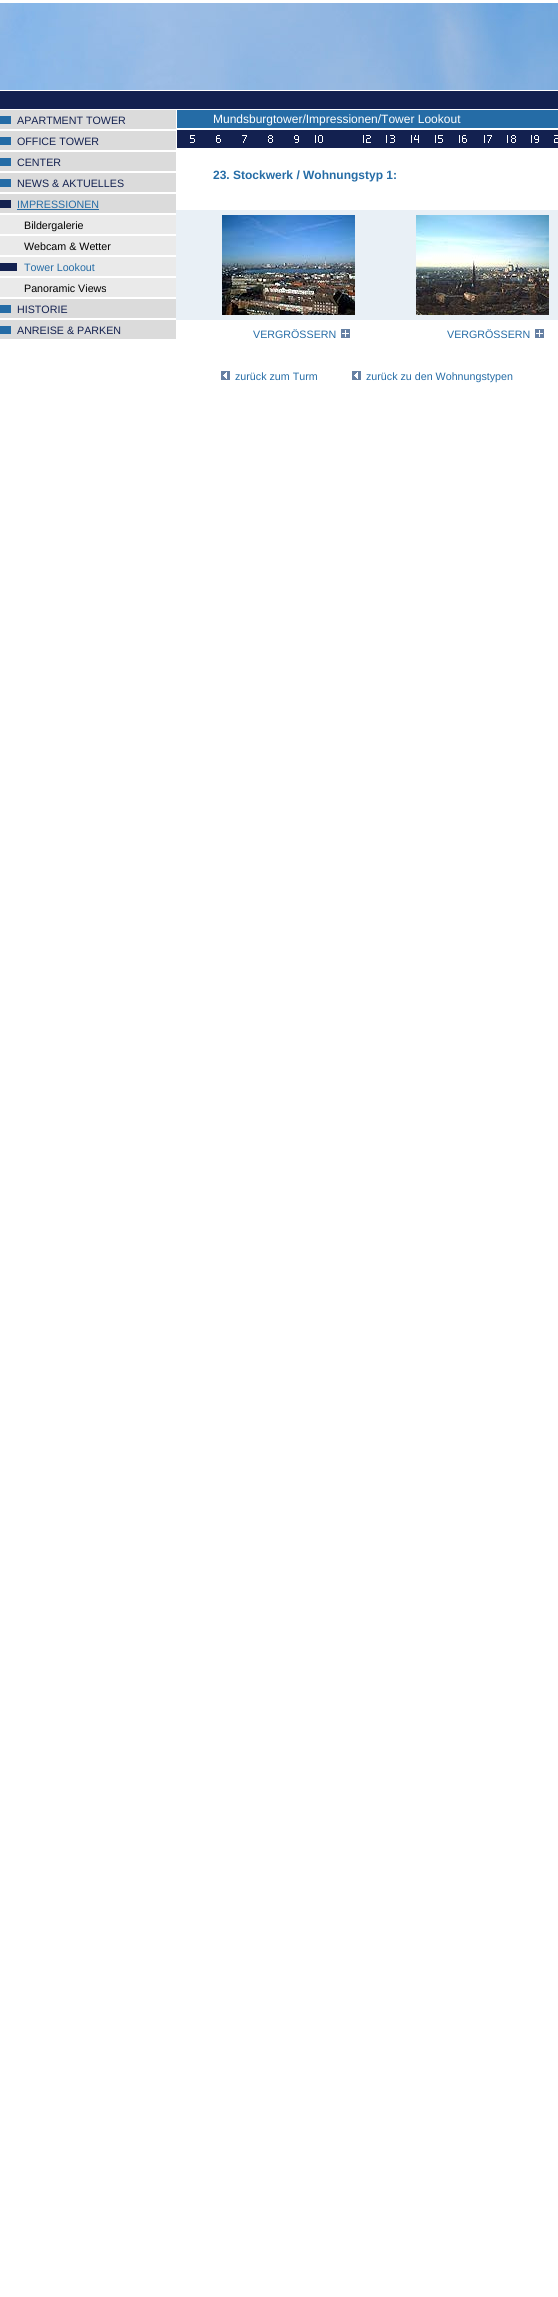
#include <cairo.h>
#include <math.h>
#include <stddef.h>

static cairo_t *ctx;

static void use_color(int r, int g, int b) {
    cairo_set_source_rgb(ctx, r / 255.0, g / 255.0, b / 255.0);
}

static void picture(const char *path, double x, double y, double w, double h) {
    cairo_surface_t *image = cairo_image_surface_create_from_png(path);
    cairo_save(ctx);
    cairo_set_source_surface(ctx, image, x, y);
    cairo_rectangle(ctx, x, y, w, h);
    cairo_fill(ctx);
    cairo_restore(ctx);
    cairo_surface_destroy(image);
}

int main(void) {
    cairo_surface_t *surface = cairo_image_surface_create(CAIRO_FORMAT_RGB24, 558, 2297);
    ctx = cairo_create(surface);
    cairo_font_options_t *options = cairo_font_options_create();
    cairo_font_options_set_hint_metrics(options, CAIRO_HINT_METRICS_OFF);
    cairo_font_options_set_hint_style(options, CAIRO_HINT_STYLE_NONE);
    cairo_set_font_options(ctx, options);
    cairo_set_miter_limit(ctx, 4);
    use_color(255, 255, 255);
    cairo_paint(ctx);
    picture("img1.png", 0, 3, 558, 87);
    use_color(19, 33, 80);
    cairo_rectangle(ctx, 0, 91, 558, 18);
    cairo_fill(ctx);
    use_color(219, 219, 219);
    cairo_rectangle(ctx, 0, 110, 176, 19);
    cairo_fill(ctx);
    use_color(37, 108, 166);
    cairo_rectangle(ctx, 0, 116, 11, 8);
    cairo_fill(ctx);
    cairo_select_font_face(ctx, "Liberation Sans", CAIRO_FONT_SLANT_NORMAL, CAIRO_FONT_WEIGHT_NORMAL);
    cairo_set_font_size(ctx, 10.7);
    use_color(19, 33, 80);
    cairo_move_to(ctx, 17, 124);
    cairo_show_text(ctx, "APARTMENT TOWER");
    use_color(219, 219, 219);
    cairo_rectangle(ctx, 0, 131, 176, 19);
    cairo_fill(ctx);
    use_color(37, 108, 166);
    cairo_rectangle(ctx, 0, 137, 11, 8);
    cairo_fill(ctx);
    use_color(19, 33, 80);
    cairo_move_to(ctx, 17, 145);
    cairo_show_text(ctx, "OFFICE TOWER");
    use_color(219, 219, 219);
    cairo_rectangle(ctx, 0, 152, 176, 19);
    cairo_fill(ctx);
    use_color(37, 108, 166);
    cairo_rectangle(ctx, 0, 158, 11, 8);
    cairo_fill(ctx);
    use_color(19, 33, 80);
    cairo_move_to(ctx, 17, 166);
    cairo_show_text(ctx, "CENTER");
    use_color(219, 219, 219);
    cairo_rectangle(ctx, 0, 173, 176, 19);
    cairo_fill(ctx);
    use_color(37, 108, 166);
    cairo_rectangle(ctx, 0, 179, 11, 8);
    cairo_fill(ctx);
    use_color(19, 33, 80);
    cairo_move_to(ctx, 17, 187);
    cairo_show_text(ctx, "NEWS & AKTUELLES");
    use_color(219, 219, 219);
    cairo_rectangle(ctx, 0, 194, 176, 19);
    cairo_fill(ctx);
    use_color(19, 33, 80);
    cairo_rectangle(ctx, 0, 200, 11, 8);
    cairo_fill(ctx);
    use_color(37, 108, 166);
    cairo_move_to(ctx, 17, 208);
    cairo_show_text(ctx, "IMPRESSIONEN");
    cairo_rectangle(ctx, 17, 209, 82, 1);
    cairo_fill(ctx);
    use_color(234, 234, 234);
    cairo_rectangle(ctx, 0, 215, 176, 19);
    cairo_fill(ctx);
    use_color(0, 0, 0);
    cairo_move_to(ctx, 24, 229);
    cairo_show_text(ctx, "Bildergalerie");
    use_color(234, 234, 234);
    cairo_rectangle(ctx, 0, 236, 176, 19);
    cairo_fill(ctx);
    use_color(0, 0, 0);
    cairo_move_to(ctx, 24, 250);
    cairo_show_text(ctx, "Webcam & Wetter");
    use_color(234, 234, 234);
    cairo_rectangle(ctx, 0, 257, 176, 19);
    cairo_fill(ctx);
    use_color(19, 33, 80);
    cairo_rectangle(ctx, 0, 263, 17, 8);
    cairo_fill(ctx);
    use_color(37, 108, 166);
    cairo_move_to(ctx, 24, 271);
    cairo_show_text(ctx, "Tower Lookout");
    use_color(234, 234, 234);
    cairo_rectangle(ctx, 0, 278, 176, 19);
    cairo_fill(ctx);
    use_color(0, 0, 0);
    cairo_move_to(ctx, 24, 292);
    cairo_show_text(ctx, "Panoramic Views");
    use_color(219, 219, 219);
    cairo_rectangle(ctx, 0, 299, 176, 19);
    cairo_fill(ctx);
    use_color(37, 108, 166);
    cairo_rectangle(ctx, 0, 305, 11, 8);
    cairo_fill(ctx);
    use_color(19, 33, 80);
    cairo_move_to(ctx, 17, 313);
    cairo_show_text(ctx, "HISTORIE");
    use_color(219, 219, 219);
    cairo_rectangle(ctx, 0, 320, 176, 19);
    cairo_fill(ctx);
    use_color(37, 108, 166);
    cairo_rectangle(ctx, 0, 326, 11, 8);
    cairo_fill(ctx);
    use_color(19, 33, 80);
    cairo_move_to(ctx, 17, 334);
    cairo_show_text(ctx, "ANREISE & PARKEN");
    use_color(37, 108, 166);
    cairo_rectangle(ctx, 177, 110, 381, 18);
    cairo_fill(ctx);
    cairo_set_font_size(ctx, 12);
    use_color(255, 255, 255);
    cairo_move_to(ctx, 213, 123);
    cairo_show_text(ctx, "Mundsburgtower/Impressionen/Tower Lookout");
    use_color(19, 33, 80);
    cairo_rectangle(ctx, 177, 130, 381, 18);
    cairo_fill(ctx);
    picture("img2.png", 190, 135, 5, 8);
    picture("img3.png", 216, 135, 5, 8);
    picture("img4.png", 242, 135, 5, 8);
    picture("img5.png", 268, 135, 5, 8);
    picture("img6.png", 294, 135, 5, 8);
    picture("img7.png", 315, 135, 8, 8);
    picture("img8.png", 363, 135, 8, 8);
    picture("img9.png", 386, 135, 9, 8);
    picture("img10.png", 411, 135, 8, 8);
    picture("img11.png", 435, 135, 8, 8);
    picture("img12.png", 459, 135, 8, 8);
    picture("img13.png", 484, 135, 8, 8);
    picture("img14.png", 507, 135, 9, 8);
    picture("img15.png", 531, 135, 8, 8);
    picture("img16.png", 554, 135, 4, 8);
    cairo_select_font_face(ctx, "Liberation Sans", CAIRO_FONT_SLANT_NORMAL, CAIRO_FONT_WEIGHT_BOLD);
    use_color(37, 108, 166);
    cairo_move_to(ctx, 213, 179);
    cairo_show_text(ctx, "23. Stockwerk / Wohnungstyp 1:");
    use_color(233, 240, 246);
    cairo_rectangle(ctx, 176, 210, 382, 110);
    cairo_fill(ctx);
    picture("img17.png", 222, 215, 133, 100);
    picture("img18.png", 416, 215, 133, 100);
    cairo_select_font_face(ctx, "Liberation Sans", CAIRO_FONT_SLANT_NORMAL, CAIRO_FONT_WEIGHT_NORMAL);
    cairo_set_font_size(ctx, 10.7);
    use_color(37, 108, 166);
    cairo_move_to(ctx, 253, 338);
    cairo_show_text(ctx, "VERGRÖSSERN");
    picture("img19.png", 341, 329, 9, 9);
    cairo_move_to(ctx, 447, 338);
    cairo_show_text(ctx, "VERGRÖSSERN");
    picture("img19.png", 535, 329, 9, 9);
    picture("img20.png", 221, 371, 9, 9);
    cairo_move_to(ctx, 235, 380);
    cairo_show_text(ctx, "zurück zum Turm");
    picture("img20.png", 352, 371, 9, 9);
    cairo_move_to(ctx, 366, 380);
    cairo_show_text(ctx, "zurück zu den Wohnungstypen");
    cairo_surface_write_to_png(surface, "result.png");
    cairo_font_options_destroy(options);
    cairo_destroy(ctx);
    cairo_surface_destroy(surface);
    return 0;
}
